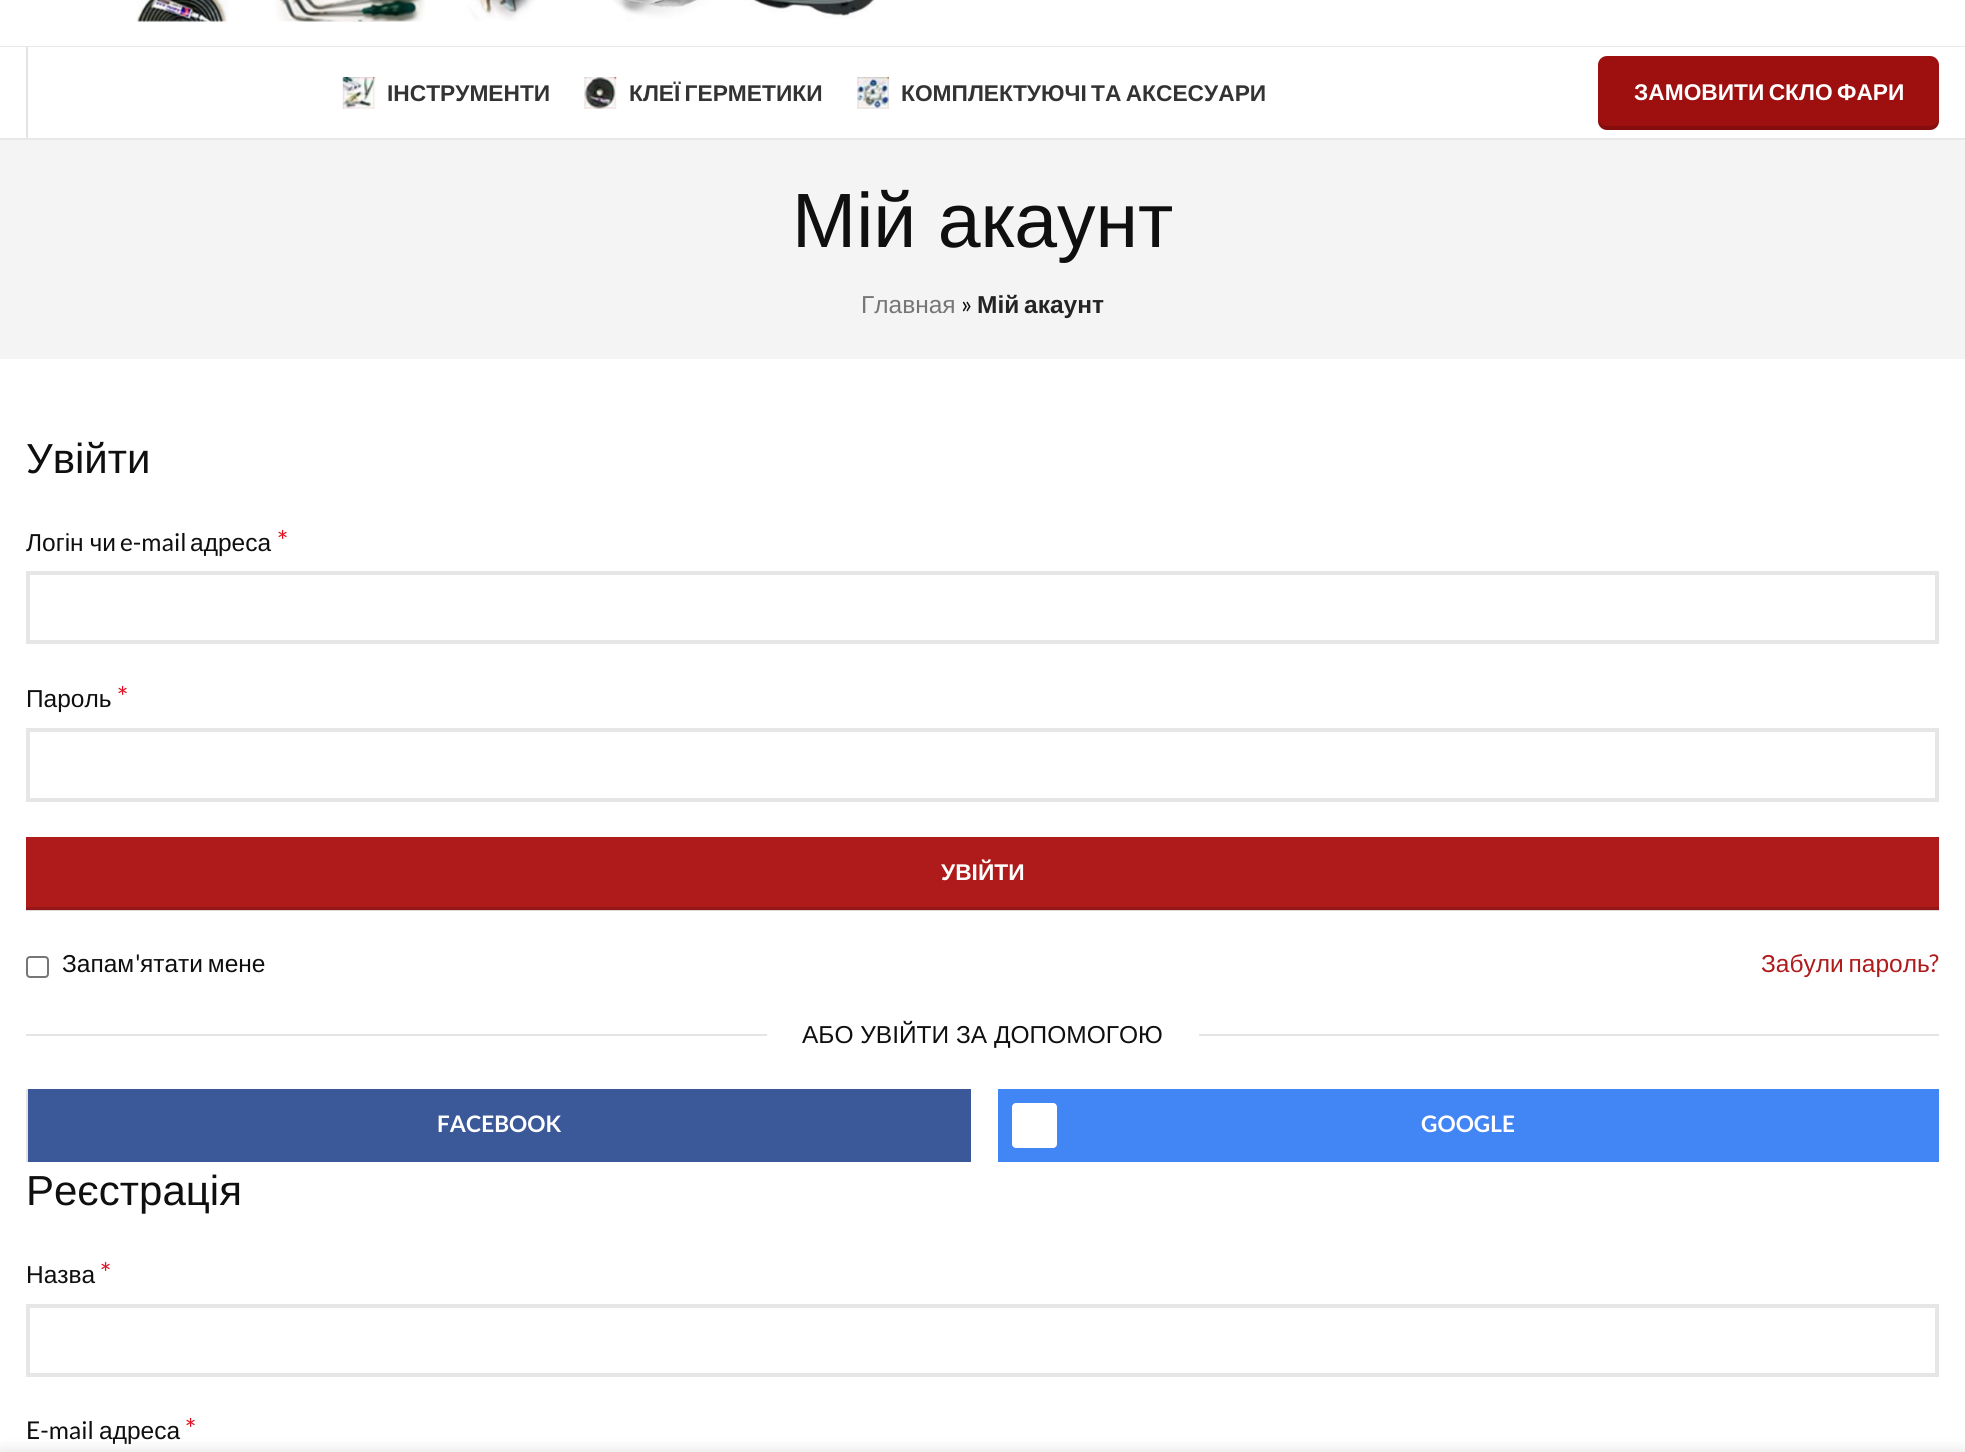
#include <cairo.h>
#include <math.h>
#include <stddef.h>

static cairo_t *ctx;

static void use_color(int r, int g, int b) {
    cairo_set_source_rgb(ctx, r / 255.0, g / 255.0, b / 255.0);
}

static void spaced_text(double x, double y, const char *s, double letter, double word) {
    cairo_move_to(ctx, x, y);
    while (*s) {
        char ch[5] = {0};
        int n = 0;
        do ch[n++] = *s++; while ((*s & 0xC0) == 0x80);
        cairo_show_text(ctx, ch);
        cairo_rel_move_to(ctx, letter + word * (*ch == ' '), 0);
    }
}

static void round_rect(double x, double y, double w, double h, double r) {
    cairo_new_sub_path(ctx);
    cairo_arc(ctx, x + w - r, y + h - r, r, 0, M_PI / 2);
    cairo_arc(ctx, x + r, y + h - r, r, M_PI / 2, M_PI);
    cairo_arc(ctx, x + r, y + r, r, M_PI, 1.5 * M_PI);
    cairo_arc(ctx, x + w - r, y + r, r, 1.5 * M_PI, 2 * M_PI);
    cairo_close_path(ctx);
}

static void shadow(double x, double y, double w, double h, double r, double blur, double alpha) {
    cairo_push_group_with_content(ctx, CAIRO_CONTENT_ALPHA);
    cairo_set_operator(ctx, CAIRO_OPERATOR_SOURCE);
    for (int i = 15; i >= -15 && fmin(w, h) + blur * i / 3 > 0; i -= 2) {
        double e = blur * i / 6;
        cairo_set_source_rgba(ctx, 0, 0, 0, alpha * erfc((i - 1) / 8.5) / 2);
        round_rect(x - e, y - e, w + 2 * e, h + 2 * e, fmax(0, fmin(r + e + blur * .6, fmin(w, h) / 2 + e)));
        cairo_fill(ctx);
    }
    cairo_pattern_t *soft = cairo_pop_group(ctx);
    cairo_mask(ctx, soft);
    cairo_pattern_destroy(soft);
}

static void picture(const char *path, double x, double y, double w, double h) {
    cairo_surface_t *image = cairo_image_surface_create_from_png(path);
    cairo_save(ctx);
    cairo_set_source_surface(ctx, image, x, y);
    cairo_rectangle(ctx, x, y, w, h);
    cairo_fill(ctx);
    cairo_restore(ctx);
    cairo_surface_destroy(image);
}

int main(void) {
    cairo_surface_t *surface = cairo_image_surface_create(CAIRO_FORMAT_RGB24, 1965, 1452);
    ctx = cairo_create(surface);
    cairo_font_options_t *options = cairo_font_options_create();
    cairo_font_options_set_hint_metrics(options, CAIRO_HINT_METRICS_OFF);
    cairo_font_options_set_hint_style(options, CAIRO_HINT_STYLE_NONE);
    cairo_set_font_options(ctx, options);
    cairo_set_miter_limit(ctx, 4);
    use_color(255, 255, 255);
    cairo_paint(ctx);
    use_color(217, 217, 217);
    cairo_rectangle(ctx, 26, 910, 1913, 1);
    cairo_fill(ctx);
    use_color(232, 232, 232);
    cairo_rectangle(ctx, 0, 46, 1965, 1);
    cairo_fill(ctx);
    picture("img1.png", 135, 0, 740, 22);
    cairo_rectangle(ctx, 0, 138, 1965, 2);
    cairo_fill(ctx);
    use_color(228, 228, 228);
    cairo_rectangle(ctx, 26, 47, 2, 91);
    cairo_fill(ctx);
    picture("img2.png", 342, 77, 34, 32);
    cairo_select_font_face(ctx, "Liberation Sans", CAIRO_FONT_SLANT_NORMAL, CAIRO_FONT_WEIGHT_BOLD);
    cairo_set_font_size(ctx, 22.75);
    use_color(51, 51, 51);
    cairo_move_to(ctx, 387, 101);
    cairo_show_text(ctx, "ІНСТРУМЕНТИ");
    picture("img3.png", 584, 77, 33, 32);
    spaced_text(629, 101, "КЛЕЇ ГЕРМЕТИКИ", 0, -2);
    picture("img4.png", 857, 77, 32, 32);
    spaced_text(901, 101, "КОМПЛЕКТУЮЧІ ТА АКСЕСУАРИ", 0, -2);
    use_color(158, 15, 15);
    round_rect(1598, 56, 341, 74, 9);
    cairo_fill(ctx);
    cairo_set_source_rgba(ctx, 0, 0, 0, 0.15);
    cairo_new_path(ctx);
    cairo_move_to(ctx, 1598, 117);
    cairo_line_to(ctx, 1598, 121);
    cairo_curve_to(ctx, 1598, 126, 1602, 130, 1607, 130);
    cairo_line_to(ctx, 1930, 130);
    cairo_curve_to(ctx, 1935, 130, 1939, 126, 1939, 121);
    cairo_line_to(ctx, 1939, 117);
    cairo_curve_to(ctx, 1939, 122, 1935, 126, 1930, 126);
    cairo_line_to(ctx, 1606, 126);
    cairo_curve_to(ctx, 1602, 126, 1598, 122, 1598, 117);
    cairo_close_path(ctx);
    cairo_fill(ctx);
    use_color(255, 255, 255);
    spaced_text(1634, 100, "ЗАМОВИТИ СКЛО ФАРИ", 0, -2);
    use_color(244, 244, 244);
    cairo_rectangle(ctx, 0, 140, 1965, 219);
    cairo_fill(ctx);
    cairo_select_font_face(ctx, "Liberation Sans", CAIRO_FONT_SLANT_NORMAL, CAIRO_FONT_WEIGHT_NORMAL);
    cairo_set_font_size(ctx, 77);
    use_color(15, 15, 15);
    cairo_move_to(ctx, 792, 247);
    cairo_show_text(ctx, "Мій акаунт");
    cairo_set_font_size(ctx, 24.5);
    use_color(118, 118, 118);
    cairo_move_to(ctx, 861, 313);
    cairo_show_text(ctx, "Главная");
    cairo_select_font_face(ctx, "Lato", CAIRO_FONT_SLANT_NORMAL, CAIRO_FONT_WEIGHT_NORMAL);
    use_color(15, 15, 15);
    cairo_move_to(ctx, 961, 313);
    cairo_show_text(ctx, "»");
    cairo_select_font_face(ctx, "Liberation Sans", CAIRO_FONT_SLANT_NORMAL, CAIRO_FONT_WEIGHT_BOLD);
    use_color(36, 36, 36);
    spaced_text(977, 313, "Мій акаунт", 0, -2);
    cairo_select_font_face(ctx, "Liberation Sans", CAIRO_FONT_SLANT_NORMAL, CAIRO_FONT_WEIGHT_NORMAL);
    cairo_set_font_size(ctx, 42);
    use_color(15, 15, 15);
    cairo_move_to(ctx, 26, 473);
    cairo_show_text(ctx, "Увійти");
    cairo_set_font_size(ctx, 24.5);
    spaced_text(26, 551, "Логін чи", 0, -1);
    cairo_select_font_face(ctx, "Lato", CAIRO_FONT_SLANT_NORMAL, CAIRO_FONT_WEIGHT_NORMAL);
    cairo_move_to(ctx, 120, 551);
    cairo_show_text(ctx, "e-mail");
    cairo_select_font_face(ctx, "Liberation Sans", CAIRO_FONT_SLANT_NORMAL, CAIRO_FONT_WEIGHT_NORMAL);
    cairo_move_to(ctx, 190, 551);
    cairo_show_text(ctx, "адреса");
    cairo_select_font_face(ctx, "Lato", CAIRO_FONT_SLANT_NORMAL, CAIRO_FONT_WEIGHT_NORMAL);
    cairo_set_font_size(ctx, 28);
    use_color(224, 16, 32);
    cairo_move_to(ctx, 277, 551);
    cairo_show_text(ctx, "*");
    cairo_rectangle(ctx, 28, 573, 1909, 69);
    use_color(230, 230, 230);
    cairo_set_line_width(ctx, 4);
    cairo_stroke(ctx);
    cairo_select_font_face(ctx, "Liberation Sans", CAIRO_FONT_SLANT_NORMAL, CAIRO_FONT_WEIGHT_NORMAL);
    cairo_set_font_size(ctx, 24.5);
    use_color(15, 15, 15);
    cairo_move_to(ctx, 26, 707);
    cairo_show_text(ctx, "Пароль");
    cairo_select_font_face(ctx, "Lato", CAIRO_FONT_SLANT_NORMAL, CAIRO_FONT_WEIGHT_NORMAL);
    cairo_set_font_size(ctx, 28);
    use_color(224, 16, 32);
    cairo_move_to(ctx, 117, 707);
    cairo_show_text(ctx, "*");
    cairo_rectangle(ctx, 28, 730, 1909, 70);
    use_color(230, 230, 230);
    cairo_stroke(ctx);
    use_color(175, 27, 27);
    cairo_rectangle(ctx, 26, 837, 1913, 70);
    cairo_fill(ctx);
    use_color(149, 23, 23);
    cairo_rectangle(ctx, 26, 907, 1913, 3);
    cairo_fill(ctx);
    cairo_select_font_face(ctx, "Liberation Sans", CAIRO_FONT_SLANT_NORMAL, CAIRO_FONT_WEIGHT_BOLD);
    cairo_set_font_size(ctx, 22.75);
    use_color(255, 255, 255);
    cairo_move_to(ctx, 941, 880);
    cairo_show_text(ctx, "УВІЙТИ");
    round_rect(27, 957, 21, 20, 3);
    use_color(118, 118, 118);
    cairo_set_line_width(ctx, 2);
    cairo_stroke(ctx);
    cairo_select_font_face(ctx, "Liberation Sans", CAIRO_FONT_SLANT_NORMAL, CAIRO_FONT_WEIGHT_NORMAL);
    cairo_set_font_size(ctx, 24.5);
    use_color(15, 15, 15);
    cairo_move_to(ctx, 62, 972);
    cairo_show_text(ctx, "Запам");
    cairo_select_font_face(ctx, "Lato", CAIRO_FONT_SLANT_NORMAL, CAIRO_FONT_WEIGHT_NORMAL);
    cairo_move_to(ctx, 135, 972);
    cairo_show_text(ctx, "'");
    cairo_select_font_face(ctx, "Liberation Sans", CAIRO_FONT_SLANT_NORMAL, CAIRO_FONT_WEIGHT_NORMAL);
    spaced_text(140, 972, "ятати мене", 0, -2);
    use_color(175, 27, 27);
    spaced_text(1761, 972, "Забули пароль", 0, -2);
    cairo_select_font_face(ctx, "Lato", CAIRO_FONT_SLANT_NORMAL, CAIRO_FONT_WEIGHT_NORMAL);
    cairo_move_to(ctx, 1929, 972);
    cairo_show_text(ctx, "?");
    use_color(228, 228, 228);
    cairo_rectangle(ctx, 26, 1034, 741, 2);
    cairo_fill(ctx);
    cairo_select_font_face(ctx, "Liberation Sans", CAIRO_FONT_SLANT_NORMAL, CAIRO_FONT_WEIGHT_NORMAL);
    use_color(15, 15, 15);
    cairo_move_to(ctx, 802, 1043);
    cairo_show_text(ctx, "АБО УВІЙТИ ЗА ДОПОМОГОЮ");
    use_color(228, 228, 228);
    cairo_rectangle(ctx, 1199, 1034, 740, 2);
    cairo_fill(ctx);
    cairo_rectangle(ctx, 26, 1089, 2, 73);
    cairo_fill(ctx);
    use_color(59, 89, 152);
    cairo_rectangle(ctx, 28, 1089, 943, 73);
    cairo_fill(ctx);
    cairo_select_font_face(ctx, "Lato", CAIRO_FONT_SLANT_NORMAL, CAIRO_FONT_WEIGHT_BOLD);
    cairo_set_font_size(ctx, 22.75);
    use_color(255, 255, 255);
    cairo_move_to(ctx, 437, 1132);
    cairo_show_text(ctx, "FACEBOOK");
    use_color(66, 133, 244);
    cairo_rectangle(ctx, 998, 1089, 941, 73);
    cairo_fill(ctx);
    use_color(255, 255, 255);
    round_rect(1012, 1103, 45, 45, 4);
    cairo_fill(ctx);
    cairo_move_to(ctx, 1421, 1132);
    cairo_show_text(ctx, "GOOGLE");
    cairo_select_font_face(ctx, "Liberation Sans", CAIRO_FONT_SLANT_NORMAL, CAIRO_FONT_WEIGHT_NORMAL);
    cairo_set_font_size(ctx, 42);
    use_color(15, 15, 15);
    cairo_move_to(ctx, 26, 1205);
    cairo_show_text(ctx, "Реєстрація");
    cairo_set_font_size(ctx, 24.5);
    cairo_move_to(ctx, 26, 1283);
    cairo_show_text(ctx, "Назва");
    cairo_select_font_face(ctx, "Lato", CAIRO_FONT_SLANT_NORMAL, CAIRO_FONT_WEIGHT_NORMAL);
    cairo_set_font_size(ctx, 28);
    use_color(224, 16, 32);
    cairo_move_to(ctx, 100, 1283);
    cairo_show_text(ctx, "*");
    cairo_rectangle(ctx, 28, 1306, 1909, 69);
    use_color(230, 230, 230);
    cairo_set_line_width(ctx, 4);
    cairo_stroke(ctx);
    cairo_set_font_size(ctx, 24.5);
    use_color(15, 15, 15);
    cairo_move_to(ctx, 26, 1439);
    cairo_show_text(ctx, "E-mail");
    cairo_select_font_face(ctx, "Liberation Sans", CAIRO_FONT_SLANT_NORMAL, CAIRO_FONT_WEIGHT_NORMAL);
    cairo_move_to(ctx, 99, 1439);
    cairo_show_text(ctx, "адреса");
    cairo_select_font_face(ctx, "Lato", CAIRO_FONT_SLANT_NORMAL, CAIRO_FONT_WEIGHT_NORMAL);
    cairo_set_font_size(ctx, 28);
    use_color(224, 16, 32);
    cairo_move_to(ctx, 185, 1439);
    cairo_show_text(ctx, "*");
    use_color(0, 0, 0);
    shadow(0, 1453, 1965, 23, 0, 8, 0.14);
    cairo_surface_write_to_png(surface, "result.png");
    cairo_font_options_destroy(options);
    cairo_destroy(ctx);
    cairo_surface_destroy(surface);
    return 0;
}
